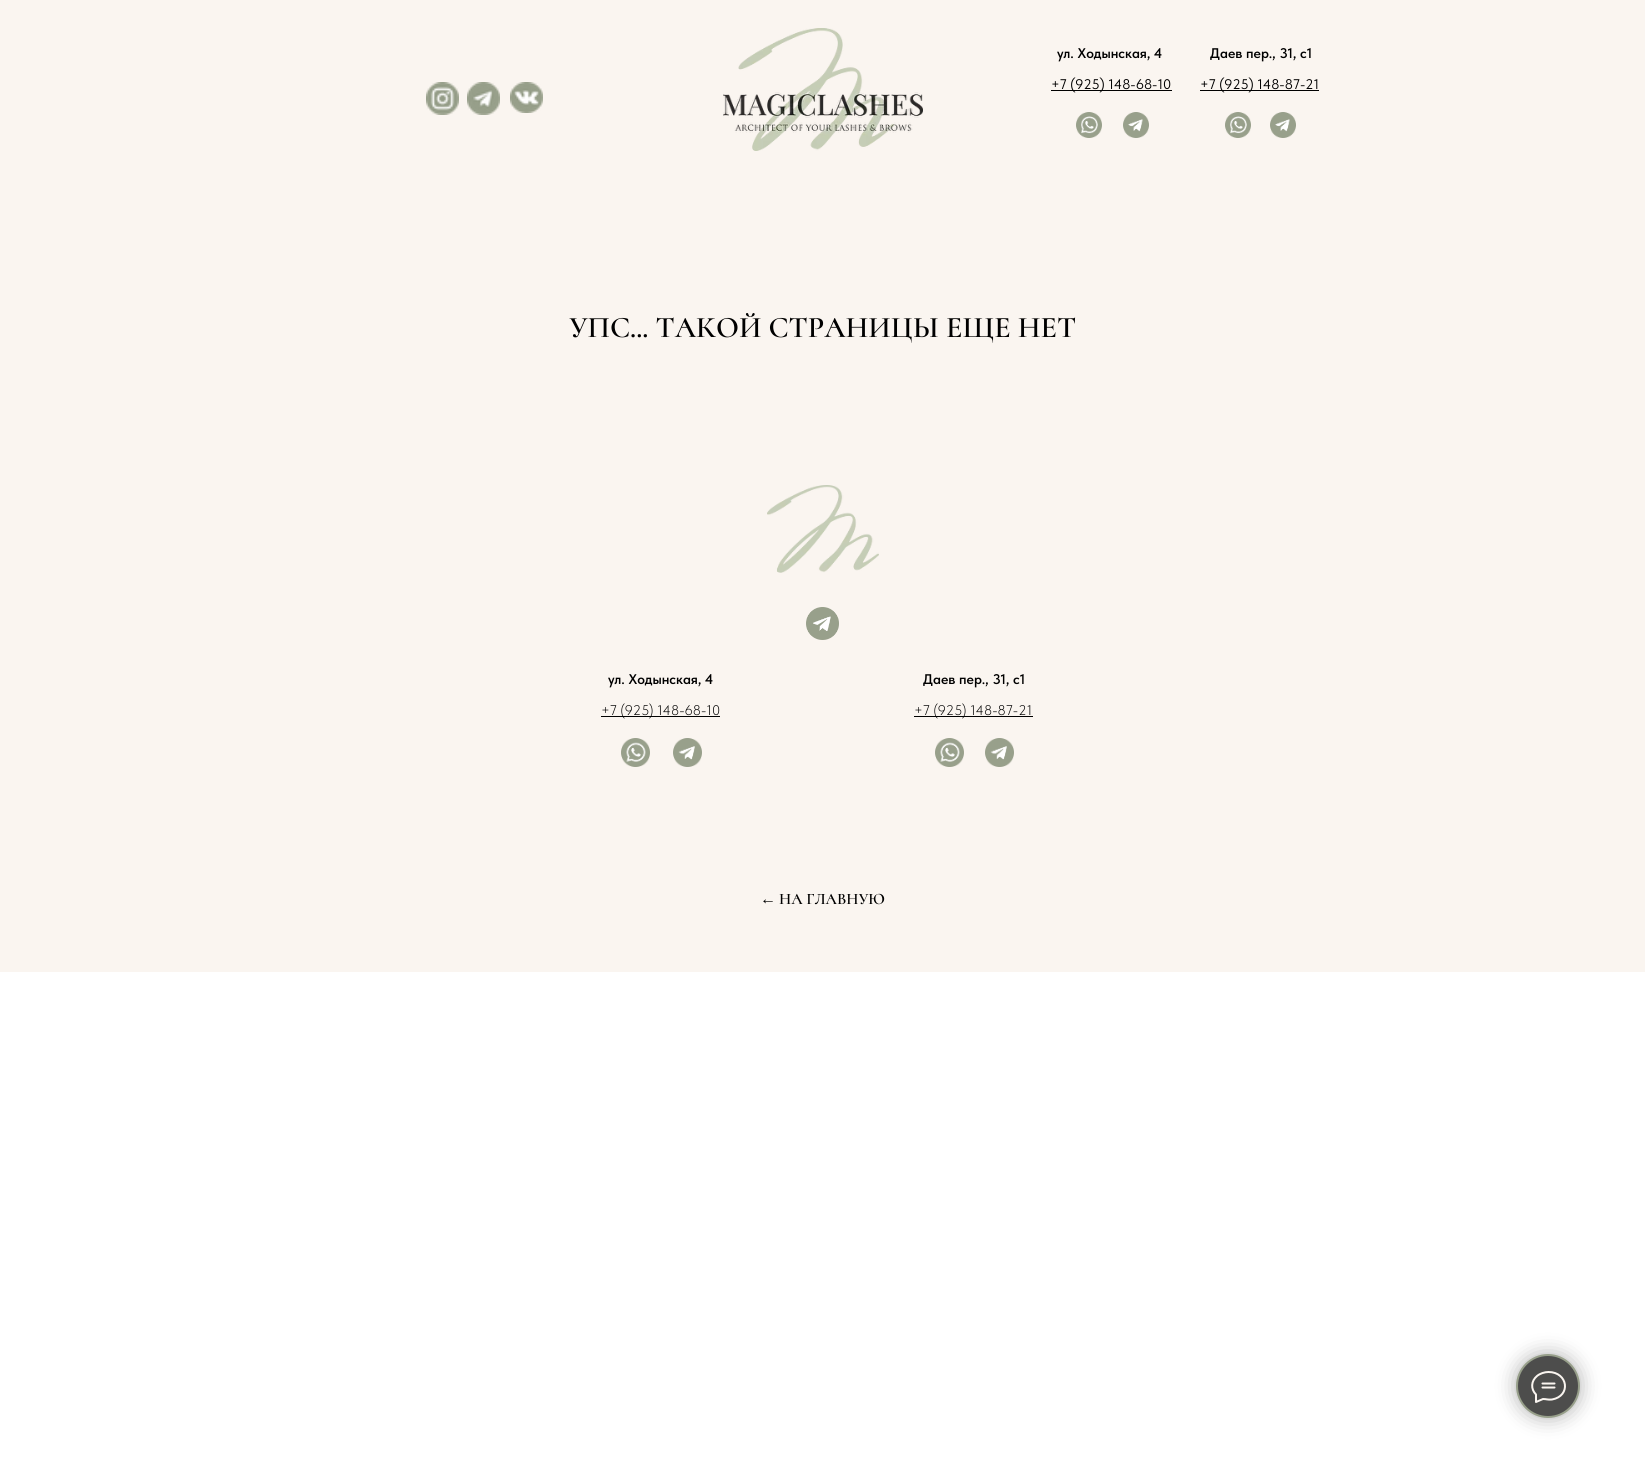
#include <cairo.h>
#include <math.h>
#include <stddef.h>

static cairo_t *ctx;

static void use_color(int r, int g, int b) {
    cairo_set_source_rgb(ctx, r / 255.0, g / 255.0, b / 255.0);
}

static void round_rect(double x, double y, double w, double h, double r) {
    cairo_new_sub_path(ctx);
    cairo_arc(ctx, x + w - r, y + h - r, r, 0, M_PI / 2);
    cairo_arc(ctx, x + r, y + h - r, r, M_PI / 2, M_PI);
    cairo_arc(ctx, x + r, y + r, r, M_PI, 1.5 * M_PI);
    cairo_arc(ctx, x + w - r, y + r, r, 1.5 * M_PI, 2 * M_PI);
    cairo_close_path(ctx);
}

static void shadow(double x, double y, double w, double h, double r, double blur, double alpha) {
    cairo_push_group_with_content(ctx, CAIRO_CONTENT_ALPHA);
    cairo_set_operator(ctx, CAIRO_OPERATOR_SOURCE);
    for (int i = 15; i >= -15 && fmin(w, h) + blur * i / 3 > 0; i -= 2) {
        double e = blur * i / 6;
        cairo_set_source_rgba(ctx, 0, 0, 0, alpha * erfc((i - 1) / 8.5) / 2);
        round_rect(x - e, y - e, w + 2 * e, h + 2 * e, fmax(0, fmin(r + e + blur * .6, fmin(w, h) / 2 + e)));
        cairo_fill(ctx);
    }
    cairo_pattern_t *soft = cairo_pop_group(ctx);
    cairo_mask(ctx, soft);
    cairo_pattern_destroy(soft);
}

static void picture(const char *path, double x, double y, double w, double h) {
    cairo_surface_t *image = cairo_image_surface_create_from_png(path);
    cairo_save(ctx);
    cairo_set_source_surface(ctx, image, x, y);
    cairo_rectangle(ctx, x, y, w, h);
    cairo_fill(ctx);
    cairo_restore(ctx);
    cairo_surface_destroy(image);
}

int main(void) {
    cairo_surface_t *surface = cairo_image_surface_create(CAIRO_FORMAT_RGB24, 1645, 1470);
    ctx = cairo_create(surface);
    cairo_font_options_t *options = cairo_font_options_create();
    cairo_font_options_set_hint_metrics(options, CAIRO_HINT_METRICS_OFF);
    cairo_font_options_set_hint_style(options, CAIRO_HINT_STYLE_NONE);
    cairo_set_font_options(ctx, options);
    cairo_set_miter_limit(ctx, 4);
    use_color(255, 255, 255);
    cairo_paint(ctx);
    use_color(250, 245, 240);
    cairo_rectangle(ctx, 0, 0, 1645, 972);
    cairo_fill(ctx);
    picture("img1.png", 723, 28, 200, 123);
    cairo_select_font_face(ctx, "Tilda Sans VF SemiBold", CAIRO_FONT_SLANT_NORMAL, CAIRO_FONT_WEIGHT_NORMAL);
    cairo_set_font_size(ctx, 14);
    use_color(0, 0, 0);
    cairo_move_to(ctx, 1057, 58);
    cairo_show_text(ctx, "ул. Ходынская, 4");
    cairo_move_to(ctx, 1210, 58);
    cairo_show_text(ctx, "Даев пер., 31, с1");
    picture("img2.png", 426, 82, 33, 33);
    picture("img3.png", 467, 82, 33, 33);
    picture("img4.png", 510, 82, 33, 31);
    cairo_rectangle(ctx, 1051, 90, 121, 1);
    cairo_fill(ctx);
    cairo_select_font_face(ctx, "Tilda Sans VF", CAIRO_FONT_SLANT_NORMAL, CAIRO_FONT_WEIGHT_NORMAL);
    cairo_move_to(ctx, 1051, 89);
    cairo_show_text(ctx, "+7 (925) 148-68-10");
    cairo_rectangle(ctx, 1200, 90, 119, 1);
    cairo_fill(ctx);
    cairo_move_to(ctx, 1200, 89);
    cairo_show_text(ctx, "+7 (925) 148-87-21");
    picture("img5.png", 1076, 112, 26, 26);
    picture("img6.png", 1123, 112, 26, 26);
    picture("img5.png", 1225, 112, 26, 26);
    picture("img6.png", 1270, 112, 26, 26);
    cairo_select_font_face(ctx, "Cormorant SemiBold", CAIRO_FONT_SLANT_NORMAL, CAIRO_FONT_WEIGHT_NORMAL);
    cairo_set_font_size(ctx, 30);
    cairo_move_to(ctx, 569, 337);
    cairo_show_text(ctx, "УПС... ТАКОЙ СТРАНИЦЫ ЕЩЕ НЕТ");
    picture("img7.png", 767, 485, 112, 88);
    picture("img8.png", 806, 607, 33, 33);
    cairo_select_font_face(ctx, "Tilda Sans VF SemiBold", CAIRO_FONT_SLANT_NORMAL, CAIRO_FONT_WEIGHT_NORMAL);
    cairo_set_font_size(ctx, 14);
    cairo_move_to(ctx, 608, 684);
    cairo_show_text(ctx, "ул. Ходынская, 4");
    cairo_move_to(ctx, 923, 684);
    cairo_show_text(ctx, "Даев пер., 31, с1");
    cairo_rectangle(ctx, 601, 716, 119, 1);
    cairo_fill(ctx);
    cairo_select_font_face(ctx, "Tilda Sans VF Light", CAIRO_FONT_SLANT_NORMAL, CAIRO_FONT_WEIGHT_NORMAL);
    cairo_move_to(ctx, 601, 715);
    cairo_show_text(ctx, "+7 (925) 148-68-10");
    cairo_rectangle(ctx, 914, 716, 119, 1);
    cairo_fill(ctx);
    cairo_move_to(ctx, 914, 715);
    cairo_show_text(ctx, "+7 (925) 148-87-21");
    picture("img9.png", 621, 738, 29, 29);
    picture("img10.png", 673, 738, 29, 29);
    picture("img9.png", 935, 738, 29, 29);
    picture("img10.png", 985, 738, 29, 29);
    cairo_select_font_face(ctx, "Liberation Sans", CAIRO_FONT_SLANT_NORMAL, CAIRO_FONT_WEIGHT_BOLD);
    cairo_set_font_size(ctx, 16);
    cairo_move_to(ctx, 760, 904);
    cairo_show_text(ctx, "←");
    cairo_select_font_face(ctx, "Cormorant SemiBold", CAIRO_FONT_SLANT_NORMAL, CAIRO_FONT_WEIGHT_NORMAL);
    cairo_move_to(ctx, 779, 904);
    cairo_show_text(ctx, "НА ГЛАВНУЮ");
    use_color(0, 0, 0);
    shadow(1516, 1354, 64, 64, 32, 10, 0.3);
    use_color(77, 77, 76);
    cairo_arc(ctx, 1548, 1386, 31, 0, 2 * M_PI);
    cairo_fill_preserve(ctx);
    use_color(151, 159, 138);
    cairo_stroke(ctx);
    cairo_new_path(ctx);
    cairo_move_to(ctx, 1542.5, 1383.5);
    cairo_line_to(ctx, 1554.5, 1383.5);
    cairo_move_to(ctx, 1542.5, 1387.5);
    cairo_line_to(ctx, 1554.5, 1387.5);
    cairo_move_to(ctx, 1536, 1394.5);
    cairo_curve_to(ctx, 1530.5, 1389, 1531, 1381, 1537, 1376);
    cairo_curve_to(ctx, 1540, 1373.5, 1544.5, 1372, 1548.5, 1372);
    cairo_curve_to(ctx, 1568, 1372, 1571.5, 1396, 1552, 1399.5);
    cairo_curve_to(ctx, 1548, 1400, 1546.5, 1399, 1543, 1399);
    cairo_line_to(ctx, 1536, 1402);
    cairo_line_to(ctx, 1536, 1395);
    cairo_close_path(ctx);
    use_color(250, 245, 240);
    cairo_set_line_cap(ctx, CAIRO_LINE_CAP_ROUND);
    cairo_set_line_join(ctx, CAIRO_LINE_JOIN_ROUND);
    cairo_stroke(ctx);
    cairo_surface_write_to_png(surface, "result.png");
    cairo_font_options_destroy(options);
    cairo_destroy(ctx);
    cairo_surface_destroy(surface);
    return 0;
}
